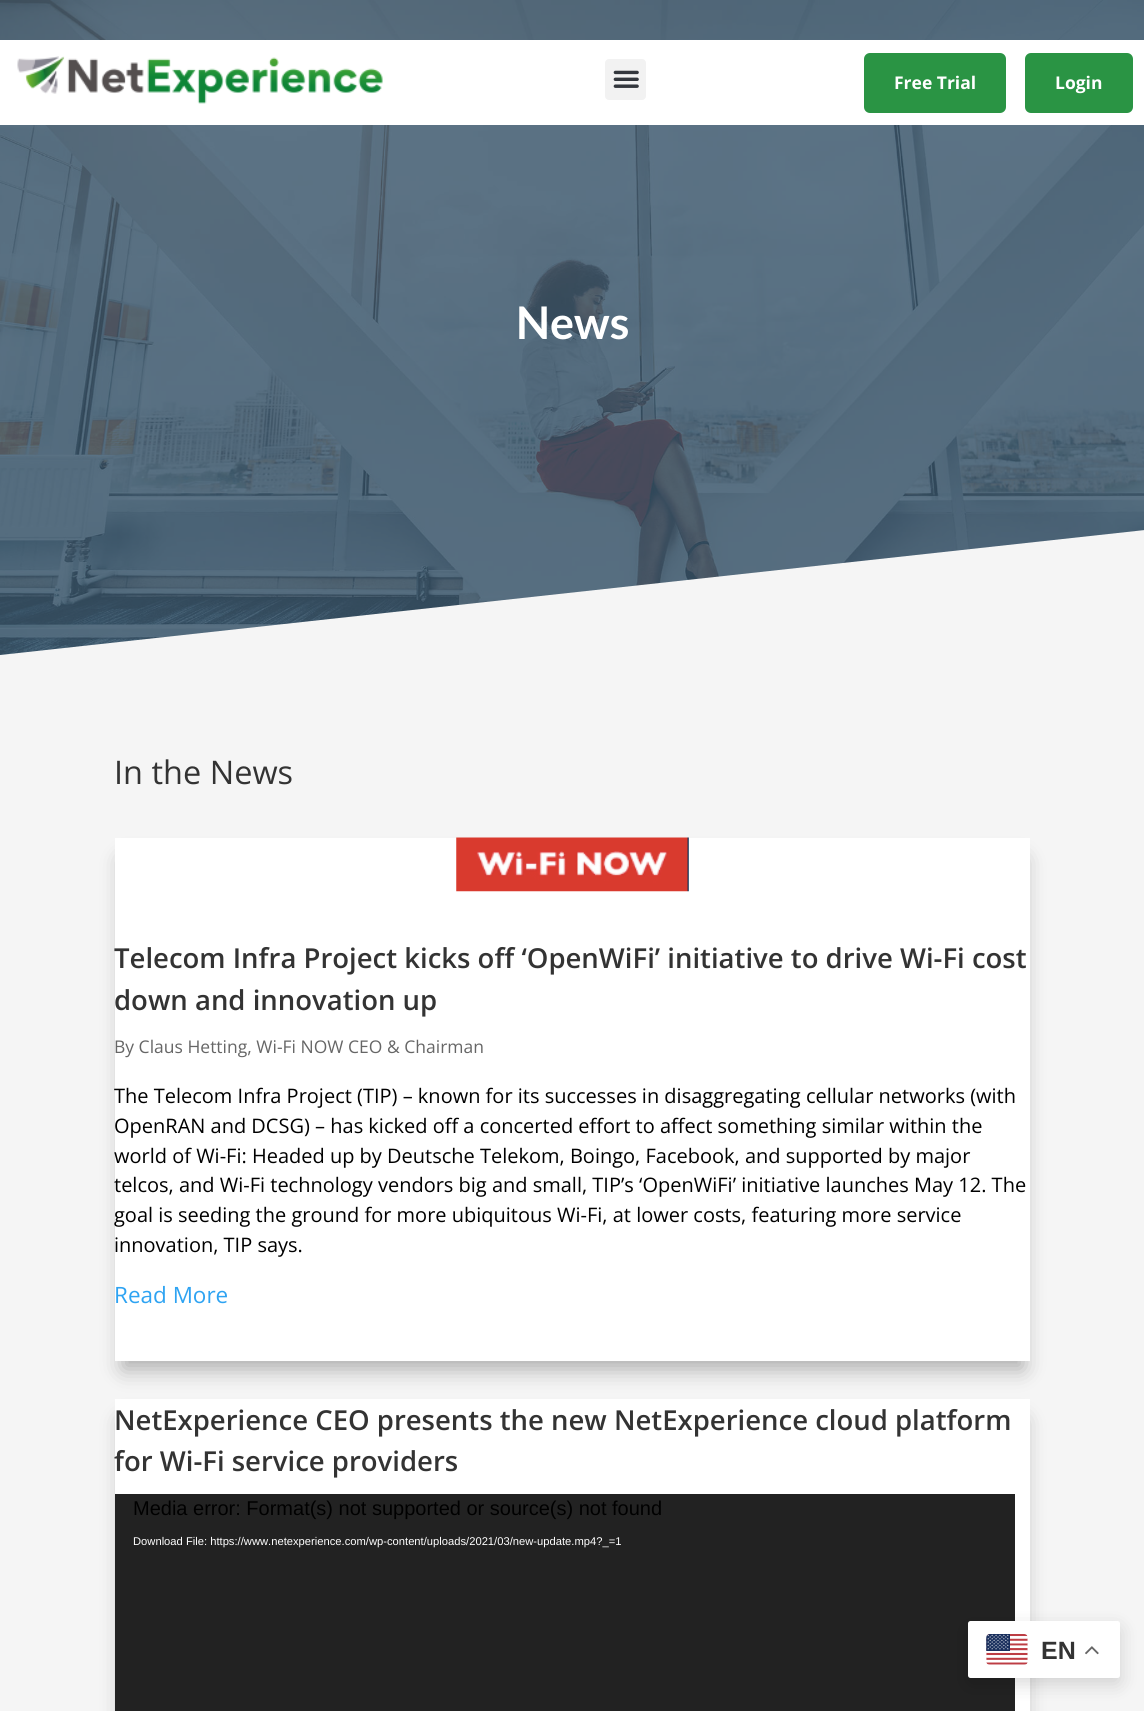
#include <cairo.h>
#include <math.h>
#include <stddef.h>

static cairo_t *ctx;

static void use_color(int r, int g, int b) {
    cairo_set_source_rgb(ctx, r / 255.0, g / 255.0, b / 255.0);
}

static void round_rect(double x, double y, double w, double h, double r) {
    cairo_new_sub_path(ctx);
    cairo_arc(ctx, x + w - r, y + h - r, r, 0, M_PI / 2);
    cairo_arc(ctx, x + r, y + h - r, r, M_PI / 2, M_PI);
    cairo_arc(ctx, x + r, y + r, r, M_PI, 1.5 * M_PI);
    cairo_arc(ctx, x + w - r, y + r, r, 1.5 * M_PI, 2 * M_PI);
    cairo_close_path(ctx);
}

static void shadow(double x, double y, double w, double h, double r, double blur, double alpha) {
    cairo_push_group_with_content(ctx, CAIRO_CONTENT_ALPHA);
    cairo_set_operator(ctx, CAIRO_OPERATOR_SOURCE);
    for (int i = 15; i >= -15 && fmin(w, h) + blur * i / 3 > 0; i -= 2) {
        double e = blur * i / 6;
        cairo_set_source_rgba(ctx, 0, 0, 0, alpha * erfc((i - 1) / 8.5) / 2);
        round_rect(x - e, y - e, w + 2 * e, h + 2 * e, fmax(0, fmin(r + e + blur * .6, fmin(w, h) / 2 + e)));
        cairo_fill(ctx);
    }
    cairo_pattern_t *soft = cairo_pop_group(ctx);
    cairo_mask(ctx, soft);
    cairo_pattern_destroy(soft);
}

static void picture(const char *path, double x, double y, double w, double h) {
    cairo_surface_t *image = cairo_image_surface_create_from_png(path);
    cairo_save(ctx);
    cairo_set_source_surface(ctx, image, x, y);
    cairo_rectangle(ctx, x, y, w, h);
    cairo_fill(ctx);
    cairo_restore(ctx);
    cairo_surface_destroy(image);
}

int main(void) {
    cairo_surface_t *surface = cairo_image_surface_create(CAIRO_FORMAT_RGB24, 1144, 1711);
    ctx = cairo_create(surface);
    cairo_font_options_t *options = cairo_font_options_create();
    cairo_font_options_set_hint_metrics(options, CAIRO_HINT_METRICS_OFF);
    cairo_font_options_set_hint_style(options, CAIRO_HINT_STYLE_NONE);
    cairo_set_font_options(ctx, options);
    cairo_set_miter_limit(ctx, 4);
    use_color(255, 255, 255);
    cairo_paint(ctx);
    picture("img3.png", 0, 0, 1144, 655);
    use_color(255, 255, 255);
    cairo_rectangle(ctx, 0, 40, 1144, 85);
    cairo_fill(ctx);
    picture("img1.png", 17, 56, 366, 48);
    use_color(242, 242, 242);
    round_rect(605, 59, 41, 41, 4);
    cairo_fill(ctx);
    picture("img2.png", 613, 70, 26, 18);
    use_color(42, 148, 68);
    round_rect(864, 53, 142, 60, 6);
    cairo_fill(ctx);
    cairo_select_font_face(ctx, "Open Sans", CAIRO_FONT_SLANT_NORMAL, CAIRO_FONT_WEIGHT_BOLD);
    cairo_set_font_size(ctx, 17.5);
    use_color(255, 255, 255);
    cairo_move_to(ctx, 894, 89);
    cairo_show_text(ctx, "Free Trial");
    use_color(42, 148, 68);
    round_rect(1025, 53, 108, 60, 6);
    cairo_fill(ctx);
    use_color(255, 255, 255);
    cairo_move_to(ctx, 1055, 89);
    cairo_show_text(ctx, "Login");
    cairo_select_font_face(ctx, "Lato", CAIRO_FONT_SLANT_NORMAL, CAIRO_FONT_WEIGHT_BOLD);
    cairo_set_font_size(ctx, 45);
    cairo_move_to(ctx, 516, 339);
    cairo_show_text(ctx, "News");
    use_color(245, 245, 245);
    cairo_new_path(ctx);
    cairo_move_to(ctx, 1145, 530);
    cairo_line_to(ctx, 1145, 655);
    cairo_line_to(ctx, 0, 655);
    cairo_close_path(ctx);
    cairo_fill(ctx);
    cairo_rectangle(ctx, 0, 655, 1144, 1056);
    cairo_fill(ctx);
    cairo_select_font_face(ctx, "Open Sans", CAIRO_FONT_SLANT_NORMAL, CAIRO_FONT_WEIGHT_NORMAL);
    cairo_set_font_size(ctx, 32.5);
    use_color(51, 51, 51);
    cairo_move_to(ctx, 114, 784);
    cairo_show_text(ctx, "In the News");
    use_color(0, 0, 0);
    shadow(123, 860, 900, 509, 0, 11, 0.3);
    use_color(255, 255, 255);
    cairo_rectangle(ctx, 115, 838, 915, 523);
    cairo_fill(ctx);
    picture("img4.png", 456, 837, 233, 55);
    cairo_select_font_face(ctx, "Open Sans SemiBold", CAIRO_FONT_SLANT_NORMAL, CAIRO_FONT_WEIGHT_NORMAL);
    cairo_set_font_size(ctx, 27.5);
    use_color(51, 51, 51);
    cairo_move_to(ctx, 114, 968);
    cairo_show_text(ctx, "Telecom Infra Project kicks off ‘OpenWiFi’ initiative to drive Wi-Fi cost");
    cairo_move_to(ctx, 114, 1010);
    cairo_show_text(ctx, "down and innovation up");
    cairo_select_font_face(ctx, "Open Sans", CAIRO_FONT_SLANT_NORMAL, CAIRO_FONT_WEIGHT_NORMAL);
    cairo_set_font_size(ctx, 17.5);
    use_color(102, 102, 102);
    cairo_move_to(ctx, 114, 1053);
    cairo_show_text(ctx, "By Claus Hetting, Wi-Fi NOW CEO & Chairman");
    cairo_set_font_size(ctx, 20);
    use_color(0, 0, 0);
    cairo_move_to(ctx, 114, 1103);
    cairo_show_text(ctx, "The Telecom Infra Project (TIP) – known for its successes in disaggregating cellular networks (with");
    cairo_move_to(ctx, 114, 1133);
    cairo_show_text(ctx, "OpenRAN and DCSG) – has kicked off a concerted effort to affect something similar within the");
    cairo_move_to(ctx, 114, 1163);
    cairo_show_text(ctx, "world of Wi-Fi: Headed up by Deutsche Telekom, Boingo, Facebook, and supported by major");
    cairo_move_to(ctx, 114, 1192);
    cairo_show_text(ctx, "telcos, and Wi-Fi technology vendors big and small, TIP’s ‘OpenWiFi’ initiative launches May 12. The");
    cairo_move_to(ctx, 114, 1222);
    cairo_show_text(ctx, "goal is seeding the ground for more ubiquitous Wi-Fi, at lower costs, featuring more service");
    cairo_move_to(ctx, 114, 1252);
    cairo_show_text(ctx, "innovation, TIP says.");
    cairo_set_font_size(ctx, 22.5);
    use_color(46, 163, 242);
    cairo_move_to(ctx, 114, 1303);
    cairo_show_text(ctx, "Read More");
    use_color(0, 0, 0);
    shadow(123, 1421, 900, 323, 0, 11, 0.3);
    use_color(255, 255, 255);
    cairo_rectangle(ctx, 115, 1399, 915, 312);
    cairo_fill(ctx);
    cairo_select_font_face(ctx, "Open Sans SemiBold", CAIRO_FONT_SLANT_NORMAL, CAIRO_FONT_WEIGHT_NORMAL);
    cairo_set_font_size(ctx, 27.5);
    use_color(51, 51, 51);
    cairo_move_to(ctx, 114, 1430);
    cairo_show_text(ctx, "NetExperience CEO presents the new NetExperience cloud platform");
    cairo_move_to(ctx, 114, 1471);
    cairo_show_text(ctx, "for Wi-Fi service providers");
    use_color(34, 34, 34);
    cairo_rectangle(ctx, 115, 1494, 900, 217);
    cairo_fill(ctx);
    cairo_select_font_face(ctx, "Liberation Sans", CAIRO_FONT_SLANT_NORMAL, CAIRO_FONT_WEIGHT_NORMAL);
    cairo_set_font_size(ctx, 20);
    use_color(0, 0, 0);
    cairo_move_to(ctx, 133, 1515);
    cairo_show_text(ctx, "Media error: Format(s) not supported or source(s) not found");
    cairo_set_font_size(ctx, 11.2);
    use_color(255, 255, 255);
    cairo_move_to(ctx, 133, 1545);
    cairo_show_text(ctx, "Download File: https://www.netexperience.com/wp-content/uploads/2021/03/new-update.mp4?_=1");
    use_color(0, 0, 0);
    shadow(968, 1628, 152, 56, 2.5, 9.5, 0.15);
    use_color(255, 255, 255);
    round_rect(968, 1621, 152, 57, 2.5);
    cairo_fill(ctx);
    picture("img5.png", 986, 1634, 42, 31);
    cairo_select_font_face(ctx, "Liberation Sans", CAIRO_FONT_SLANT_NORMAL, CAIRO_FONT_WEIGHT_BOLD);
    cairo_set_font_size(ctx, 25);
    use_color(51, 51, 51);
    cairo_move_to(ctx, 1041, 1659);
    cairo_show_text(ctx, "EN");
    picture("img6.png", 1085, 1646, 14, 9);
    cairo_surface_write_to_png(surface, "result.png");
    cairo_font_options_destroy(options);
    cairo_destroy(ctx);
    cairo_surface_destroy(surface);
    return 0;
}
